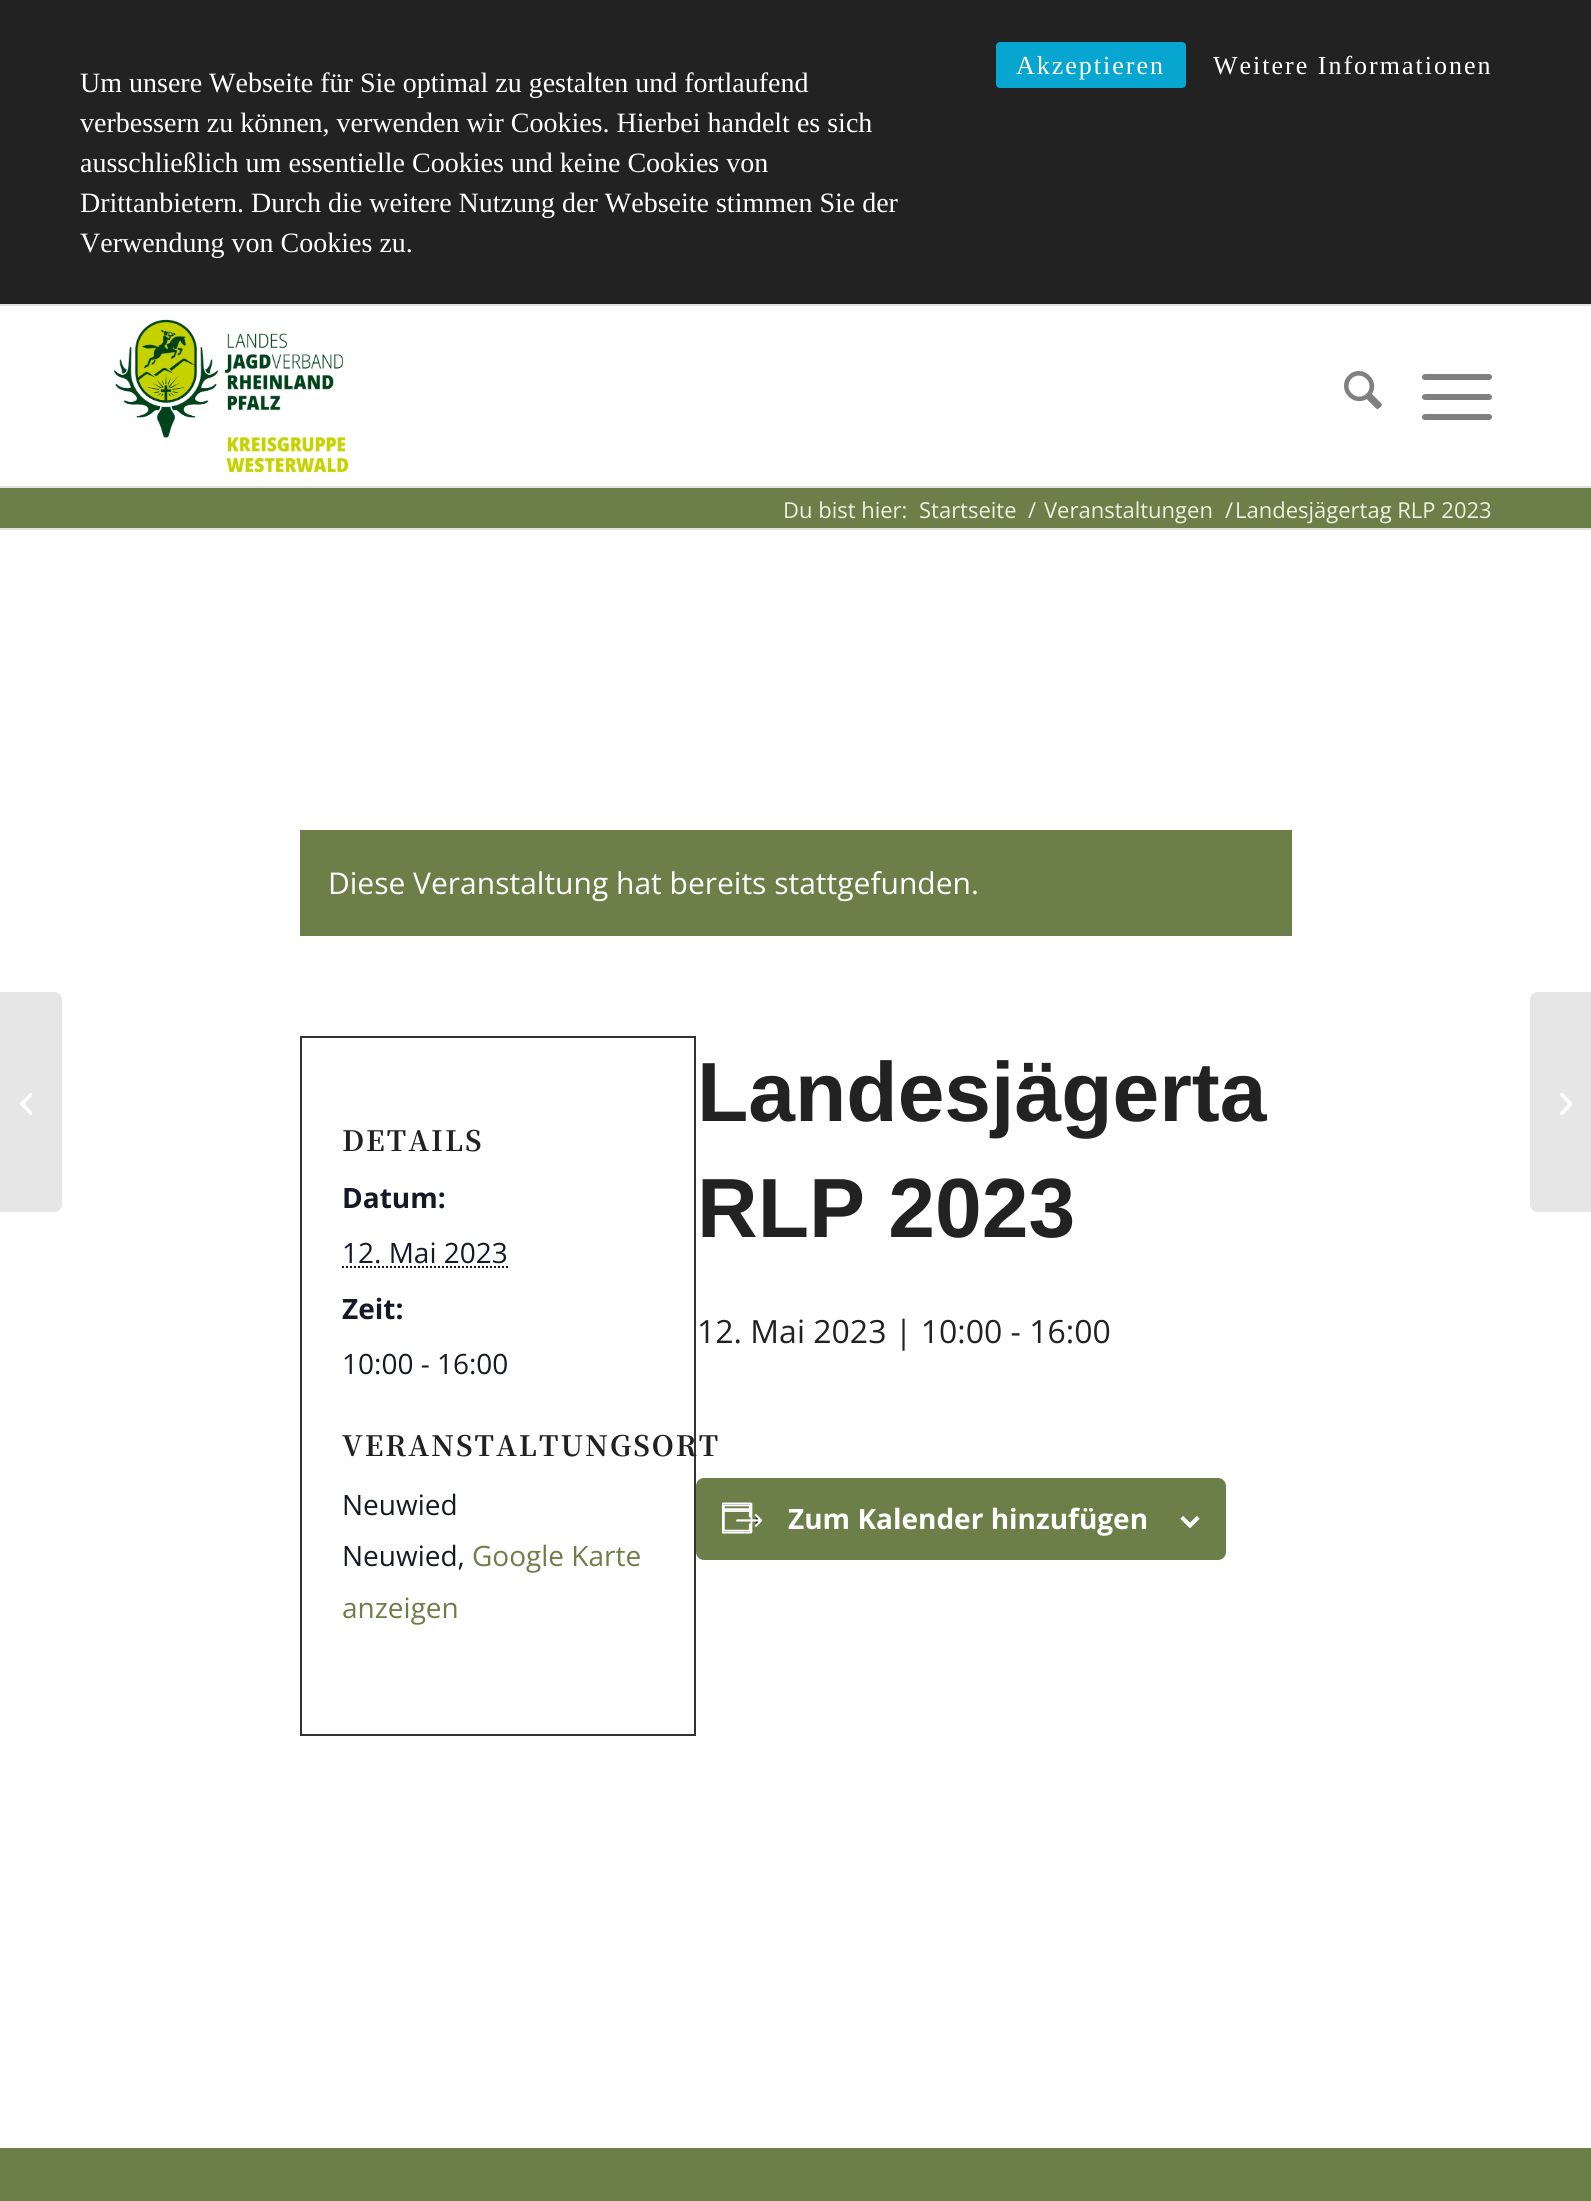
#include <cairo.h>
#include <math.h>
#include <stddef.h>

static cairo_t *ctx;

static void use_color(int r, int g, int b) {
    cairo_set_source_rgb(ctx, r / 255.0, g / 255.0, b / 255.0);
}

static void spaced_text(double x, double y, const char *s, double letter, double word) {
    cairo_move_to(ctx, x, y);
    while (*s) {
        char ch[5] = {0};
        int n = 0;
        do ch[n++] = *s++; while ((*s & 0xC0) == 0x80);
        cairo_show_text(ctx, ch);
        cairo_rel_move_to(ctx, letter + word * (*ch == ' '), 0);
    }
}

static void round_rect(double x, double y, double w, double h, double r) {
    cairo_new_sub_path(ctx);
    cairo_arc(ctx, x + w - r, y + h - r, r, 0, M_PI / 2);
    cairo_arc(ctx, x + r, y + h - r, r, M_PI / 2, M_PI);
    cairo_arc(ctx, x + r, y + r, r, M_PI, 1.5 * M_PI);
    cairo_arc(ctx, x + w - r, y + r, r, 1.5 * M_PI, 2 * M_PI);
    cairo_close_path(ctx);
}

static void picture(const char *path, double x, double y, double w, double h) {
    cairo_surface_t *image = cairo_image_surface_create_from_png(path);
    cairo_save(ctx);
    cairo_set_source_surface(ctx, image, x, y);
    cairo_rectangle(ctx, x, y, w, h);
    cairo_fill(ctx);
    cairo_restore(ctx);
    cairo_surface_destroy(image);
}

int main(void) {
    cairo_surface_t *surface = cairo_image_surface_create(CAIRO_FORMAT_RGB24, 1591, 2201);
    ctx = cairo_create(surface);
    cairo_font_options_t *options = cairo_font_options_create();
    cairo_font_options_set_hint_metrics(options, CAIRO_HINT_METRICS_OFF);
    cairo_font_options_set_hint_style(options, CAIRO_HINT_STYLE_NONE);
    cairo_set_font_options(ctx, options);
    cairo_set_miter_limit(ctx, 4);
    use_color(34, 34, 34);
    cairo_paint(ctx);
    use_color(7, 166, 208);
    round_rect(996, 42, 190, 46, 4);
    cairo_fill(ctx);
    cairo_select_font_face(ctx, "Liberation Serif", CAIRO_FONT_SLANT_NORMAL, CAIRO_FONT_WEIGHT_NORMAL);
    cairo_set_font_size(ctx, 26);
    use_color(255, 255, 255);
    spaced_text(1016, 74, "Akzeptieren", 2, 0);
    spaced_text(1213, 74, "Weitere Informationen", 2, 0);
    cairo_set_font_size(ctx, 28);
    cairo_move_to(ctx, 80, 92);
    cairo_show_text(ctx, "Um unsere Webseite für Sie optimal zu gestalten und fortlaufend");
    cairo_move_to(ctx, 80, 132);
    cairo_show_text(ctx, "verbessern zu können, verwenden wir Cookies. Hierbei handelt es sich");
    cairo_move_to(ctx, 80, 172);
    cairo_show_text(ctx, "ausschließlich um essentielle Cookies und keine Cookies von");
    cairo_move_to(ctx, 80, 212);
    cairo_show_text(ctx, "Drittanbietern. Durch die weitere Nutzung der Webseite stimmen Sie der");
    cairo_move_to(ctx, 80, 252);
    cairo_show_text(ctx, "Verwendung von Cookies zu.");
    cairo_rectangle(ctx, 0, 306, 1591, 1842);
    cairo_fill(ctx);
    use_color(225, 225, 225);
    cairo_rectangle(ctx, 0, 304, 1591, 2);
    cairo_fill(ctx);
    cairo_rectangle(ctx, 0, 486, 1591, 2);
    cairo_fill(ctx);
    picture("img1.png", 113, 319, 236, 154);
    picture("img2.png", 1344, 371, 38, 38);
    use_color(128, 128, 128);
    round_rect(1422, 394, 70, 6, 3);
    cairo_fill(ctx);
    round_rect(1422, 374, 70, 6, 3);
    cairo_fill(ctx);
    round_rect(1422, 414, 70, 6, 3);
    cairo_fill(ctx);
    use_color(230, 230, 230);
    cairo_new_path(ctx);
    cairo_move_to(ctx, 0, 992);
    cairo_line_to(ctx, 54, 992);
    cairo_curve_to(ctx, 58.5, 992, 62, 995.5, 62, 1000);
    cairo_line_to(ctx, 62, 1204);
    cairo_curve_to(ctx, 62, 1208.5, 58.5, 1212, 54, 1212);
    cairo_line_to(ctx, 0, 1212);
    cairo_close_path(ctx);
    cairo_fill(ctx);
    picture("img3.png", 20, 1093, 12, 22);
    use_color(108, 127, 72);
    cairo_rectangle(ctx, 0, 488, 1591, 40);
    cairo_fill(ctx);
    cairo_select_font_face(ctx, "Open Sans", CAIRO_FONT_SLANT_NORMAL, CAIRO_FONT_WEIGHT_NORMAL);
    cairo_set_font_size(ctx, 22);
    use_color(236, 242, 225);
    cairo_move_to(ctx, 783, 518);
    cairo_show_text(ctx, "Du bist hier:");
    cairo_move_to(ctx, 919, 518);
    cairo_show_text(ctx, "Startseite");
    cairo_move_to(ctx, 1028, 518);
    cairo_show_text(ctx, "/");
    cairo_move_to(ctx, 1044, 518);
    cairo_show_text(ctx, "Veranstaltungen");
    cairo_move_to(ctx, 1225, 518);
    cairo_show_text(ctx, "/");
    cairo_move_to(ctx, 1235, 518);
    cairo_show_text(ctx, "Landesjägertag RLP 2023");
    use_color(225, 225, 225);
    cairo_rectangle(ctx, 0, 528, 1591, 2);
    cairo_fill(ctx);
    use_color(108, 127, 72);
    cairo_rectangle(ctx, 300, 830, 992, 106);
    cairo_fill(ctx);
    cairo_set_font_size(ctx, 30);
    use_color(255, 255, 255);
    cairo_move_to(ctx, 328, 894);
    cairo_show_text(ctx, "Diese Veranstaltung hat bereits stattgefunden.");
    cairo_rectangle(ctx, 301, 1037, 394, 698);
    use_color(51, 51, 51);
    cairo_stroke(ctx);
    cairo_select_font_face(ctx, "Noto Serif TC", CAIRO_FONT_SLANT_NORMAL, CAIRO_FONT_WEIGHT_BOLD);
    cairo_set_font_size(ctx, 28);
    use_color(34, 34, 34);
    spaced_text(342, 1151, "DETAILS", 2, 0);
    cairo_select_font_face(ctx, "Open Sans", CAIRO_FONT_SLANT_NORMAL, CAIRO_FONT_WEIGHT_BOLD);
    use_color(20, 24, 39);
    cairo_move_to(ctx, 342, 1208);
    cairo_show_text(ctx, "Datum:");
    cairo_select_font_face(ctx, "Open Sans", CAIRO_FONT_SLANT_NORMAL, CAIRO_FONT_WEIGHT_NORMAL);
    cairo_move_to(ctx, 342, 1263);
    cairo_show_text(ctx, "12. Mai 2023");
    cairo_new_path(ctx);
    cairo_move_to(ctx, 342, 1267);
    cairo_line_to(ctx, 508, 1267);
    cairo_set_dash(ctx, (double[]){2, 2}, 2, 0);
    cairo_stroke(ctx);
    cairo_select_font_face(ctx, "Open Sans", CAIRO_FONT_SLANT_NORMAL, CAIRO_FONT_WEIGHT_BOLD);
    cairo_move_to(ctx, 342, 1319);
    cairo_show_text(ctx, "Zeit:");
    cairo_select_font_face(ctx, "Open Sans", CAIRO_FONT_SLANT_NORMAL, CAIRO_FONT_WEIGHT_NORMAL);
    cairo_move_to(ctx, 342, 1374);
    cairo_show_text(ctx, "10:00 - 16:00");
    cairo_select_font_face(ctx, "Noto Serif TC", CAIRO_FONT_SLANT_NORMAL, CAIRO_FONT_WEIGHT_BOLD);
    use_color(34, 34, 34);
    spaced_text(342, 1456, "VERANSTALTUNGSORT", 2, 0);
    cairo_select_font_face(ctx, "Open Sans", CAIRO_FONT_SLANT_NORMAL, CAIRO_FONT_WEIGHT_NORMAL);
    use_color(20, 24, 39);
    cairo_move_to(ctx, 342, 1515);
    cairo_show_text(ctx, "Neuwied");
    cairo_move_to(ctx, 342, 1566);
    cairo_show_text(ctx, "Neuwied,");
    use_color(108, 127, 72);
    cairo_move_to(ctx, 472, 1566);
    cairo_show_text(ctx, "Google Karte");
    cairo_move_to(ctx, 342, 1618);
    cairo_show_text(ctx, "anzeigen");
    cairo_select_font_face(ctx, "Liberation Sans", CAIRO_FONT_SLANT_NORMAL, CAIRO_FONT_WEIGHT_BOLD);
    cairo_set_font_size(ctx, 84);
    use_color(34, 34, 34);
    cairo_move_to(ctx, 697, 1121);
    cairo_show_text(ctx, "Landesjägerta");
    cairo_move_to(ctx, 697, 1237);
    cairo_show_text(ctx, "RLP 2023");
    cairo_select_font_face(ctx, "Open Sans", CAIRO_FONT_SLANT_NORMAL, CAIRO_FONT_WEIGHT_NORMAL);
    cairo_set_font_size(ctx, 32);
    cairo_move_to(ctx, 697, 1343);
    cairo_show_text(ctx, "12. Mai 2023 | 10:00 - 16:00");
    use_color(108, 127, 72);
    round_rect(697, 1479, 528, 80, 7);
    cairo_fill_preserve(ctx);
    cairo_set_dash(ctx, NULL, 0, 0);
    cairo_stroke(ctx);
    picture("img4.png", 722, 1502, 41, 32);
    cairo_select_font_face(ctx, "Open Sans", CAIRO_FONT_SLANT_NORMAL, CAIRO_FONT_WEIGHT_BOLD);
    cairo_set_font_size(ctx, 28);
    use_color(255, 255, 255);
    cairo_move_to(ctx, 788, 1529);
    cairo_show_text(ctx, "Zum Kalender hinzufügen");
    picture("img5.png", 1180, 1516, 20, 12);
    use_color(108, 127, 72);
    cairo_rectangle(ctx, 0, 2148, 1591, 53);
    cairo_fill(ctx);
    use_color(230, 230, 230);
    cairo_new_path(ctx);
    cairo_move_to(ctx, 1538, 992);
    cairo_line_to(ctx, 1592, 992);
    cairo_line_to(ctx, 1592, 1212);
    cairo_line_to(ctx, 1538, 1212);
    cairo_curve_to(ctx, 1533.5, 1212, 1530, 1208.5, 1530, 1204);
    cairo_line_to(ctx, 1530, 1000);
    cairo_curve_to(ctx, 1530, 995.5, 1533.5, 992, 1538, 992);
    cairo_close_path(ctx);
    cairo_fill(ctx);
    picture("img6.png", 1560, 1093, 12, 22);
    cairo_surface_write_to_png(surface, "result.png");
    cairo_font_options_destroy(options);
    cairo_destroy(ctx);
    cairo_surface_destroy(surface);
    return 0;
}
